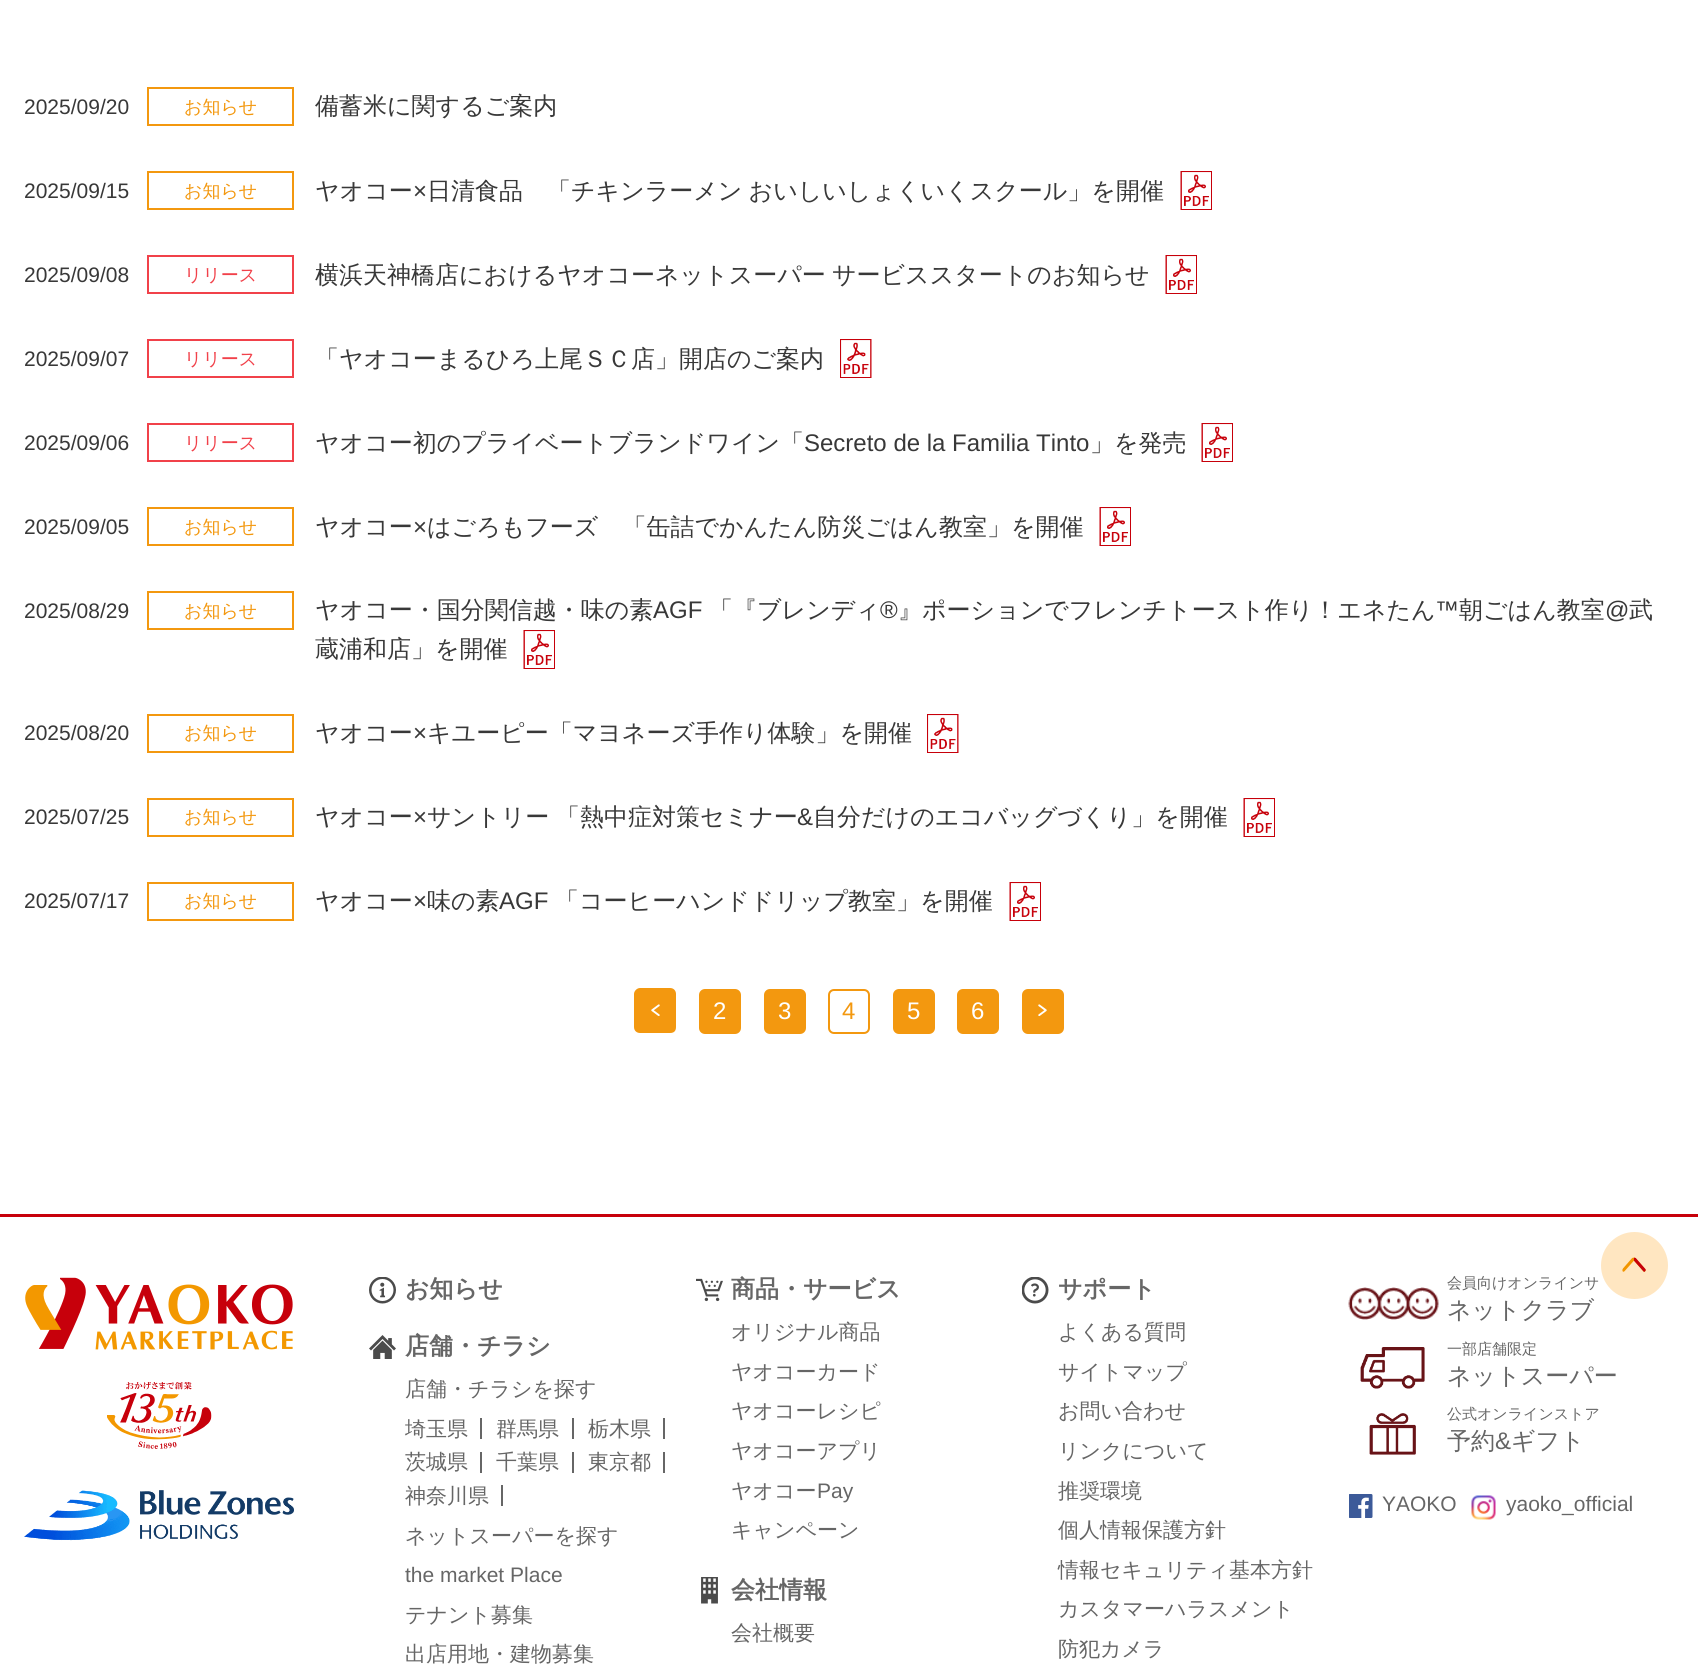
#include <cairo.h>
#include <math.h>
#include <stddef.h>

static cairo_t *ctx;

static void use_color(int r, int g, int b) {
    cairo_set_source_rgb(ctx, r / 255.0, g / 255.0, b / 255.0);
}

static void spaced_text(double x, double y, const char *s, double letter, double word) {
    cairo_move_to(ctx, x, y);
    while (*s) {
        char ch[5] = {0};
        int n = 0;
        do ch[n++] = *s++; while ((*s & 0xC0) == 0x80);
        cairo_show_text(ctx, ch);
        cairo_rel_move_to(ctx, letter + word * (*ch == ' '), 0);
    }
}

static void round_rect(double x, double y, double w, double h, double r) {
    cairo_new_sub_path(ctx);
    cairo_arc(ctx, x + w - r, y + h - r, r, 0, M_PI / 2);
    cairo_arc(ctx, x + r, y + h - r, r, M_PI / 2, M_PI);
    cairo_arc(ctx, x + r, y + r, r, M_PI, 1.5 * M_PI);
    cairo_arc(ctx, x + w - r, y + r, r, 1.5 * M_PI, 2 * M_PI);
    cairo_close_path(ctx);
}

static void picture(const char *path, double x, double y, double w, double h) {
    cairo_surface_t *image = cairo_image_surface_create_from_png(path);
    cairo_save(ctx);
    cairo_set_source_surface(ctx, image, x, y);
    cairo_rectangle(ctx, x, y, w, h);
    cairo_fill(ctx);
    cairo_restore(ctx);
    cairo_surface_destroy(image);
}

int main(void) {
    cairo_surface_t *surface = cairo_image_surface_create(CAIRO_FORMAT_RGB24, 1698, 1667);
    ctx = cairo_create(surface);
    cairo_font_options_t *options = cairo_font_options_create();
    cairo_font_options_set_hint_metrics(options, CAIRO_HINT_METRICS_OFF);
    cairo_font_options_set_hint_style(options, CAIRO_HINT_STYLE_NONE);
    cairo_set_font_options(ctx, options);
    cairo_set_miter_limit(ctx, 4);
    use_color(255, 255, 255);
    cairo_paint(ctx);
    cairo_select_font_face(ctx, "Liberation Sans", CAIRO_FONT_SLANT_NORMAL, CAIRO_FONT_WEIGHT_NORMAL);
    cairo_set_font_size(ctx, 21);
    use_color(56, 56, 56);
    cairo_move_to(ctx, 24, 114);
    cairo_show_text(ctx, "2025/09/20");
    cairo_rectangle(ctx, 148, 88, 145, 37);
    use_color(243, 152, 15);
    cairo_stroke(ctx);
    cairo_select_font_face(ctx, "WenQuanYi Zen Hei Medium", CAIRO_FONT_SLANT_NORMAL, CAIRO_FONT_WEIGHT_NORMAL);
    cairo_set_font_size(ctx, 18);
    cairo_move_to(ctx, 184, 113);
    cairo_show_text(ctx, "お知らせ");
    cairo_set_font_size(ctx, 24);
    use_color(56, 56, 56);
    cairo_move_to(ctx, 315, 114);
    cairo_show_text(ctx, "備蓄米に関するご案内");
    cairo_select_font_face(ctx, "Liberation Sans", CAIRO_FONT_SLANT_NORMAL, CAIRO_FONT_WEIGHT_NORMAL);
    cairo_set_font_size(ctx, 21);
    cairo_move_to(ctx, 24, 198);
    cairo_show_text(ctx, "2025/09/15");
    cairo_rectangle(ctx, 148, 172, 145, 37);
    use_color(243, 152, 15);
    cairo_stroke(ctx);
    cairo_select_font_face(ctx, "WenQuanYi Zen Hei Medium", CAIRO_FONT_SLANT_NORMAL, CAIRO_FONT_WEIGHT_NORMAL);
    cairo_set_font_size(ctx, 18);
    cairo_move_to(ctx, 184, 197);
    cairo_show_text(ctx, "お知らせ");
    cairo_set_font_size(ctx, 24);
    use_color(56, 56, 56);
    cairo_move_to(ctx, 315, 199);
    cairo_show_text(ctx, "ヤオコー");
    cairo_select_font_face(ctx, "Liberation Sans", CAIRO_FONT_SLANT_NORMAL, CAIRO_FONT_WEIGHT_NORMAL);
    cairo_move_to(ctx, 413, 199);
    cairo_show_text(ctx, "×");
    cairo_select_font_face(ctx, "WenQuanYi Zen Hei Medium", CAIRO_FONT_SLANT_NORMAL, CAIRO_FONT_WEIGHT_NORMAL);
    spaced_text(427, 199, "日清食品　「チキンラーメン おいしいしょくいくスクール」を開催", 0, -1);
    picture("img1.png", 1180, 171, 32, 39);
    cairo_select_font_face(ctx, "Liberation Sans", CAIRO_FONT_SLANT_NORMAL, CAIRO_FONT_WEIGHT_NORMAL);
    cairo_set_font_size(ctx, 21);
    cairo_move_to(ctx, 24, 282);
    cairo_show_text(ctx, "2025/09/08");
    cairo_rectangle(ctx, 148, 256, 145, 37);
    use_color(241, 65, 74);
    cairo_stroke(ctx);
    cairo_select_font_face(ctx, "WenQuanYi Zen Hei Medium", CAIRO_FONT_SLANT_NORMAL, CAIRO_FONT_WEIGHT_NORMAL);
    cairo_set_font_size(ctx, 18);
    cairo_move_to(ctx, 184, 281);
    cairo_show_text(ctx, "リリース");
    cairo_set_font_size(ctx, 24);
    use_color(56, 56, 56);
    spaced_text(315, 283, "横浜天神橋店におけるヤオコーネットスーパー サービススタートのお知らせ", 0, -1);
    picture("img1.png", 1165, 255, 32, 39);
    cairo_select_font_face(ctx, "Liberation Sans", CAIRO_FONT_SLANT_NORMAL, CAIRO_FONT_WEIGHT_NORMAL);
    cairo_set_font_size(ctx, 21);
    cairo_move_to(ctx, 24, 366);
    cairo_show_text(ctx, "2025/09/07");
    cairo_rectangle(ctx, 148, 340, 145, 37);
    use_color(241, 65, 74);
    cairo_stroke(ctx);
    cairo_select_font_face(ctx, "WenQuanYi Zen Hei Medium", CAIRO_FONT_SLANT_NORMAL, CAIRO_FONT_WEIGHT_NORMAL);
    cairo_set_font_size(ctx, 18);
    cairo_move_to(ctx, 184, 365);
    cairo_show_text(ctx, "リリース");
    cairo_set_font_size(ctx, 24);
    use_color(56, 56, 56);
    cairo_move_to(ctx, 315, 367);
    cairo_show_text(ctx, "「ヤオコーまるひろ上尾ＳＣ店」開店のご案内");
    picture("img2.png", 840, 339, 32, 39);
    cairo_select_font_face(ctx, "Liberation Sans", CAIRO_FONT_SLANT_NORMAL, CAIRO_FONT_WEIGHT_NORMAL);
    cairo_set_font_size(ctx, 21);
    cairo_move_to(ctx, 24, 450);
    cairo_show_text(ctx, "2025/09/06");
    cairo_rectangle(ctx, 148, 424, 145, 37);
    use_color(241, 65, 74);
    cairo_stroke(ctx);
    cairo_select_font_face(ctx, "WenQuanYi Zen Hei Medium", CAIRO_FONT_SLANT_NORMAL, CAIRO_FONT_WEIGHT_NORMAL);
    cairo_set_font_size(ctx, 18);
    cairo_move_to(ctx, 184, 449);
    cairo_show_text(ctx, "リリース");
    cairo_set_font_size(ctx, 24);
    use_color(56, 56, 56);
    cairo_move_to(ctx, 315, 451);
    cairo_show_text(ctx, "ヤオコー初のプライベートブランドワイン「");
    cairo_select_font_face(ctx, "Liberation Sans", CAIRO_FONT_SLANT_NORMAL, CAIRO_FONT_WEIGHT_NORMAL);
    cairo_move_to(ctx, 804, 451);
    cairo_show_text(ctx, "Secreto de la Familia Tinto");
    cairo_select_font_face(ctx, "WenQuanYi Zen Hei Medium", CAIRO_FONT_SLANT_NORMAL, CAIRO_FONT_WEIGHT_NORMAL);
    cairo_move_to(ctx, 1090, 451);
    cairo_show_text(ctx, "」を発売");
    picture("img1.png", 1201, 423, 32, 39);
    cairo_select_font_face(ctx, "Liberation Sans", CAIRO_FONT_SLANT_NORMAL, CAIRO_FONT_WEIGHT_NORMAL);
    cairo_set_font_size(ctx, 21);
    cairo_move_to(ctx, 24, 534);
    cairo_show_text(ctx, "2025/09/05");
    cairo_rectangle(ctx, 148, 508, 145, 37);
    use_color(243, 152, 15);
    cairo_stroke(ctx);
    cairo_select_font_face(ctx, "WenQuanYi Zen Hei Medium", CAIRO_FONT_SLANT_NORMAL, CAIRO_FONT_WEIGHT_NORMAL);
    cairo_set_font_size(ctx, 18);
    cairo_move_to(ctx, 184, 533);
    cairo_show_text(ctx, "お知らせ");
    cairo_set_font_size(ctx, 24);
    use_color(56, 56, 56);
    cairo_move_to(ctx, 315, 535);
    cairo_show_text(ctx, "ヤオコー");
    cairo_select_font_face(ctx, "Liberation Sans", CAIRO_FONT_SLANT_NORMAL, CAIRO_FONT_WEIGHT_NORMAL);
    cairo_move_to(ctx, 413, 535);
    cairo_show_text(ctx, "×");
    cairo_select_font_face(ctx, "WenQuanYi Zen Hei Medium", CAIRO_FONT_SLANT_NORMAL, CAIRO_FONT_WEIGHT_NORMAL);
    cairo_move_to(ctx, 427, 535);
    cairo_show_text(ctx, "はごろもフーズ　「缶詰でかんたん防災ごはん教室」を開催");
    picture("img1.png", 1099, 507, 32, 39);
    cairo_select_font_face(ctx, "Liberation Sans", CAIRO_FONT_SLANT_NORMAL, CAIRO_FONT_WEIGHT_NORMAL);
    cairo_set_font_size(ctx, 21);
    cairo_move_to(ctx, 24, 618);
    cairo_show_text(ctx, "2025/08/29");
    cairo_rectangle(ctx, 148, 592, 145, 37);
    use_color(243, 152, 15);
    cairo_stroke(ctx);
    cairo_select_font_face(ctx, "WenQuanYi Zen Hei Medium", CAIRO_FONT_SLANT_NORMAL, CAIRO_FONT_WEIGHT_NORMAL);
    cairo_set_font_size(ctx, 18);
    cairo_move_to(ctx, 184, 617);
    cairo_show_text(ctx, "お知らせ");
    cairo_set_font_size(ctx, 24);
    use_color(56, 56, 56);
    cairo_move_to(ctx, 315, 618);
    cairo_show_text(ctx, "ヤオコー・国分関信越・味の素");
    cairo_select_font_face(ctx, "Liberation Sans", CAIRO_FONT_SLANT_NORMAL, CAIRO_FONT_WEIGHT_NORMAL);
    cairo_move_to(ctx, 653, 618);
    cairo_show_text(ctx, "AGF");
    cairo_select_font_face(ctx, "WenQuanYi Zen Hei Medium", CAIRO_FONT_SLANT_NORMAL, CAIRO_FONT_WEIGHT_NORMAL);
    cairo_move_to(ctx, 709, 618);
    cairo_show_text(ctx, "「『ブレンディ");
    cairo_select_font_face(ctx, "Liberation Sans", CAIRO_FONT_SLANT_NORMAL, CAIRO_FONT_WEIGHT_NORMAL);
    cairo_move_to(ctx, 880, 618);
    cairo_show_text(ctx, "®");
    cairo_select_font_face(ctx, "WenQuanYi Zen Hei Medium", CAIRO_FONT_SLANT_NORMAL, CAIRO_FONT_WEIGHT_NORMAL);
    cairo_move_to(ctx, 898, 618);
    cairo_show_text(ctx, "』ポーションでフレンチトースト作り！エネたん");
    cairo_select_font_face(ctx, "Liberation Sans", CAIRO_FONT_SLANT_NORMAL, CAIRO_FONT_WEIGHT_NORMAL);
    cairo_move_to(ctx, 1435, 618);
    cairo_show_text(ctx, "™");
    cairo_select_font_face(ctx, "WenQuanYi Zen Hei Medium", CAIRO_FONT_SLANT_NORMAL, CAIRO_FONT_WEIGHT_NORMAL);
    cairo_move_to(ctx, 1459, 618);
    cairo_show_text(ctx, "朝ごはん教室");
    cairo_select_font_face(ctx, "Liberation Sans", CAIRO_FONT_SLANT_NORMAL, CAIRO_FONT_WEIGHT_NORMAL);
    cairo_move_to(ctx, 1605, 618);
    cairo_show_text(ctx, "@");
    cairo_select_font_face(ctx, "WenQuanYi Zen Hei Medium", CAIRO_FONT_SLANT_NORMAL, CAIRO_FONT_WEIGHT_NORMAL);
    cairo_move_to(ctx, 1629, 618);
    cairo_show_text(ctx, "武");
    cairo_move_to(ctx, 315, 657);
    cairo_show_text(ctx, "蔵浦和店」を開催");
    picture("img1.png", 523, 630, 32, 39);
    cairo_select_font_face(ctx, "Liberation Sans", CAIRO_FONT_SLANT_NORMAL, CAIRO_FONT_WEIGHT_NORMAL);
    cairo_set_font_size(ctx, 21);
    cairo_move_to(ctx, 24, 740);
    cairo_show_text(ctx, "2025/08/20");
    cairo_rectangle(ctx, 148, 715, 145, 37);
    use_color(243, 152, 15);
    cairo_stroke(ctx);
    cairo_select_font_face(ctx, "WenQuanYi Zen Hei Medium", CAIRO_FONT_SLANT_NORMAL, CAIRO_FONT_WEIGHT_NORMAL);
    cairo_set_font_size(ctx, 18);
    cairo_move_to(ctx, 184, 739);
    cairo_show_text(ctx, "お知らせ");
    cairo_set_font_size(ctx, 24);
    use_color(56, 56, 56);
    cairo_move_to(ctx, 315, 741);
    cairo_show_text(ctx, "ヤオコー");
    cairo_select_font_face(ctx, "Liberation Sans", CAIRO_FONT_SLANT_NORMAL, CAIRO_FONT_WEIGHT_NORMAL);
    cairo_move_to(ctx, 413, 741);
    cairo_show_text(ctx, "×");
    cairo_select_font_face(ctx, "WenQuanYi Zen Hei Medium", CAIRO_FONT_SLANT_NORMAL, CAIRO_FONT_WEIGHT_NORMAL);
    cairo_move_to(ctx, 427, 741);
    cairo_show_text(ctx, "キユーピー「マヨネーズ手作り体験」を開催");
    picture("img2.png", 927, 714, 32, 39);
    cairo_select_font_face(ctx, "Liberation Sans", CAIRO_FONT_SLANT_NORMAL, CAIRO_FONT_WEIGHT_NORMAL);
    cairo_set_font_size(ctx, 21);
    cairo_move_to(ctx, 24, 824);
    cairo_show_text(ctx, "2025/07/25");
    cairo_rectangle(ctx, 148, 799, 145, 37);
    use_color(243, 152, 15);
    cairo_stroke(ctx);
    cairo_select_font_face(ctx, "WenQuanYi Zen Hei Medium", CAIRO_FONT_SLANT_NORMAL, CAIRO_FONT_WEIGHT_NORMAL);
    cairo_set_font_size(ctx, 18);
    cairo_move_to(ctx, 184, 823);
    cairo_show_text(ctx, "お知らせ");
    cairo_set_font_size(ctx, 24);
    use_color(56, 56, 56);
    cairo_move_to(ctx, 315, 825);
    cairo_show_text(ctx, "ヤオコー");
    cairo_select_font_face(ctx, "Liberation Sans", CAIRO_FONT_SLANT_NORMAL, CAIRO_FONT_WEIGHT_NORMAL);
    cairo_move_to(ctx, 413, 825);
    cairo_show_text(ctx, "×");
    cairo_select_font_face(ctx, "WenQuanYi Zen Hei Medium", CAIRO_FONT_SLANT_NORMAL, CAIRO_FONT_WEIGHT_NORMAL);
    cairo_move_to(ctx, 427, 825);
    cairo_show_text(ctx, "サントリー");
    cairo_move_to(ctx, 556, 825);
    cairo_show_text(ctx, "「熱中症対策セミナー");
    cairo_select_font_face(ctx, "Liberation Sans", CAIRO_FONT_SLANT_NORMAL, CAIRO_FONT_WEIGHT_NORMAL);
    cairo_move_to(ctx, 797, 825);
    cairo_show_text(ctx, "&");
    cairo_select_font_face(ctx, "WenQuanYi Zen Hei Medium", CAIRO_FONT_SLANT_NORMAL, CAIRO_FONT_WEIGHT_NORMAL);
    cairo_move_to(ctx, 813, 825);
    cairo_show_text(ctx, "自分だけのエコバッグづくり」を開催");
    picture("img1.png", 1243, 798, 32, 39);
    cairo_select_font_face(ctx, "Liberation Sans", CAIRO_FONT_SLANT_NORMAL, CAIRO_FONT_WEIGHT_NORMAL);
    cairo_set_font_size(ctx, 21);
    cairo_move_to(ctx, 24, 908);
    cairo_show_text(ctx, "2025/07/17");
    cairo_rectangle(ctx, 148, 883, 145, 37);
    use_color(243, 152, 15);
    cairo_stroke(ctx);
    cairo_select_font_face(ctx, "WenQuanYi Zen Hei Medium", CAIRO_FONT_SLANT_NORMAL, CAIRO_FONT_WEIGHT_NORMAL);
    cairo_set_font_size(ctx, 18);
    cairo_move_to(ctx, 184, 907);
    cairo_show_text(ctx, "お知らせ");
    cairo_set_font_size(ctx, 24);
    use_color(56, 56, 56);
    cairo_move_to(ctx, 315, 909);
    cairo_show_text(ctx, "ヤオコー");
    cairo_select_font_face(ctx, "Liberation Sans", CAIRO_FONT_SLANT_NORMAL, CAIRO_FONT_WEIGHT_NORMAL);
    cairo_move_to(ctx, 413, 909);
    cairo_show_text(ctx, "×");
    cairo_select_font_face(ctx, "WenQuanYi Zen Hei Medium", CAIRO_FONT_SLANT_NORMAL, CAIRO_FONT_WEIGHT_NORMAL);
    cairo_move_to(ctx, 427, 909);
    cairo_show_text(ctx, "味の素");
    cairo_select_font_face(ctx, "Liberation Sans", CAIRO_FONT_SLANT_NORMAL, CAIRO_FONT_WEIGHT_NORMAL);
    cairo_move_to(ctx, 499, 909);
    cairo_show_text(ctx, "AGF");
    cairo_select_font_face(ctx, "WenQuanYi Zen Hei Medium", CAIRO_FONT_SLANT_NORMAL, CAIRO_FONT_WEIGHT_NORMAL);
    cairo_move_to(ctx, 555, 909);
    cairo_show_text(ctx, "「コーヒーハンドドリップ教室」を開催");
    picture("img1.png", 1009, 882, 32, 39);
    use_color(243, 152, 15);
    cairo_new_path(ctx);
    cairo_move_to(ctx, 670, 988);
    cairo_line_to(ctx, 640, 988);
    cairo_curve_to(ctx, 637, 988, 634, 991, 634, 994);
    cairo_line_to(ctx, 634, 1027);
    cairo_curve_to(ctx, 634, 1031, 637, 1033, 640, 1033);
    cairo_line_to(ctx, 670, 1033);
    cairo_curve_to(ctx, 674, 1033, 676, 1031, 676, 1027);
    cairo_line_to(ctx, 676, 994);
    cairo_curve_to(ctx, 676, 991, 674, 988, 670, 988);
    cairo_close_path(ctx);
    cairo_fill(ctx);
    picture("img3.png", 651, 1004, 9, 12);
    round_rect(699, 989, 42, 45, 6);
    cairo_fill(ctx);
    cairo_select_font_face(ctx, "Liberation Sans", CAIRO_FONT_SLANT_NORMAL, CAIRO_FONT_WEIGHT_NORMAL);
    use_color(255, 255, 255);
    cairo_move_to(ctx, 713, 1019);
    cairo_show_text(ctx, "2");
    use_color(243, 152, 15);
    round_rect(764, 989, 42, 45, 6);
    cairo_fill(ctx);
    use_color(255, 255, 255);
    cairo_move_to(ctx, 778, 1019);
    cairo_show_text(ctx, "3");
    round_rect(829, 990, 40, 43, 5);
    use_color(243, 152, 15);
    cairo_stroke(ctx);
    cairo_move_to(ctx, 842, 1019);
    cairo_show_text(ctx, "4");
    round_rect(893, 989, 42, 45, 6);
    cairo_fill(ctx);
    use_color(255, 255, 255);
    cairo_move_to(ctx, 907, 1019);
    cairo_show_text(ctx, "5");
    use_color(243, 152, 15);
    round_rect(957, 989, 42, 45, 6);
    cairo_fill(ctx);
    use_color(255, 255, 255);
    cairo_move_to(ctx, 971, 1019);
    cairo_show_text(ctx, "6");
    use_color(243, 152, 15);
    round_rect(1022, 989, 42, 45, 6);
    cairo_fill(ctx);
    picture("img4.png", 1038, 1004, 9, 12);
    use_color(199, 0, 10);
    cairo_rectangle(ctx, 0, 1214, 1698, 3);
    cairo_fill(ctx);
    use_color(255, 230, 193);
    cairo_arc(ctx, 1634.5, 1265.5, 33.5, 0, 2 * M_PI);
    cairo_fill(ctx);
    picture("img5.png", 1622, 1257, 24, 15);
    picture("img6.png", 25, 1277, 268, 73);
    picture("img7.png", 107, 1382, 105, 67);
    picture("img8.png", 24, 1490, 270, 51);
    picture("img9.png", 369, 1277, 27, 27);
    cairo_select_font_face(ctx, "WenQuanYi Zen Hei", CAIRO_FONT_SLANT_NORMAL, CAIRO_FONT_WEIGHT_BOLD);
    use_color(102, 102, 102);
    cairo_move_to(ctx, 405, 1297);
    cairo_show_text(ctx, "お知らせ");
    picture("img10.png", 369, 1335, 27, 24);
    cairo_move_to(ctx, 405, 1354);
    cairo_show_text(ctx, "店舗・チラシ");
    cairo_select_font_face(ctx, "WenQuanYi Zen Hei Medium", CAIRO_FONT_SLANT_NORMAL, CAIRO_FONT_WEIGHT_NORMAL);
    cairo_set_font_size(ctx, 21);
    cairo_move_to(ctx, 405, 1396);
    cairo_show_text(ctx, "店舗・チラシを探す");
    cairo_rectangle(ctx, 480, 1418, 2, 21);
    cairo_fill(ctx);
    cairo_move_to(ctx, 405, 1436);
    cairo_show_text(ctx, "埼玉県");
    cairo_rectangle(ctx, 572, 1418, 2, 21);
    cairo_fill(ctx);
    cairo_move_to(ctx, 496, 1436);
    cairo_show_text(ctx, "群馬県");
    cairo_rectangle(ctx, 663, 1418, 2, 21);
    cairo_fill(ctx);
    cairo_move_to(ctx, 588, 1436);
    cairo_show_text(ctx, "栃木県");
    cairo_rectangle(ctx, 480, 1452, 2, 21);
    cairo_fill(ctx);
    cairo_move_to(ctx, 405, 1469);
    cairo_show_text(ctx, "茨城県");
    cairo_rectangle(ctx, 572, 1452, 2, 21);
    cairo_fill(ctx);
    cairo_move_to(ctx, 496, 1469);
    cairo_show_text(ctx, "千葉県");
    cairo_rectangle(ctx, 663, 1452, 2, 21);
    cairo_fill(ctx);
    cairo_move_to(ctx, 588, 1469);
    cairo_show_text(ctx, "東京都");
    cairo_rectangle(ctx, 501, 1485, 2, 21);
    cairo_fill(ctx);
    cairo_move_to(ctx, 405, 1503);
    cairo_show_text(ctx, "神奈川県");
    cairo_move_to(ctx, 405, 1543);
    cairo_show_text(ctx, "ネットスーパーを探す");
    cairo_select_font_face(ctx, "Liberation Sans", CAIRO_FONT_SLANT_NORMAL, CAIRO_FONT_WEIGHT_NORMAL);
    cairo_move_to(ctx, 405, 1582);
    cairo_show_text(ctx, "the market Place");
    cairo_select_font_face(ctx, "WenQuanYi Zen Hei Medium", CAIRO_FONT_SLANT_NORMAL, CAIRO_FONT_WEIGHT_NORMAL);
    cairo_move_to(ctx, 405, 1622);
    cairo_show_text(ctx, "テナント募集");
    cairo_move_to(ctx, 405, 1661);
    cairo_show_text(ctx, "出店用地・建物募集");
    picture("img11.png", 696, 1278, 27, 24);
    cairo_select_font_face(ctx, "WenQuanYi Zen Hei", CAIRO_FONT_SLANT_NORMAL, CAIRO_FONT_WEIGHT_BOLD);
    cairo_set_font_size(ctx, 24);
    cairo_move_to(ctx, 731, 1297);
    cairo_show_text(ctx, "商品・サービス");
    cairo_select_font_face(ctx, "WenQuanYi Zen Hei Medium", CAIRO_FONT_SLANT_NORMAL, CAIRO_FONT_WEIGHT_NORMAL);
    cairo_set_font_size(ctx, 21);
    cairo_move_to(ctx, 731, 1339);
    cairo_show_text(ctx, "オリジナル商品");
    cairo_move_to(ctx, 731, 1379);
    cairo_show_text(ctx, "ヤオコーカード");
    cairo_move_to(ctx, 731, 1418);
    cairo_show_text(ctx, "ヤオコーレシピ");
    cairo_move_to(ctx, 731, 1458);
    cairo_show_text(ctx, "ヤオコーアプリ");
    cairo_move_to(ctx, 731, 1498);
    cairo_show_text(ctx, "ヤオコー");
    cairo_select_font_face(ctx, "Liberation Sans", CAIRO_FONT_SLANT_NORMAL, CAIRO_FONT_WEIGHT_NORMAL);
    cairo_move_to(ctx, 817, 1498);
    cairo_show_text(ctx, "Pay");
    cairo_select_font_face(ctx, "WenQuanYi Zen Hei Medium", CAIRO_FONT_SLANT_NORMAL, CAIRO_FONT_WEIGHT_NORMAL);
    cairo_move_to(ctx, 731, 1537);
    cairo_show_text(ctx, "キャンペーン");
    picture("img12.png", 701, 1577, 17, 27);
    cairo_select_font_face(ctx, "WenQuanYi Zen Hei", CAIRO_FONT_SLANT_NORMAL, CAIRO_FONT_WEIGHT_BOLD);
    cairo_set_font_size(ctx, 24);
    cairo_move_to(ctx, 731, 1598);
    cairo_show_text(ctx, "会社情報");
    cairo_select_font_face(ctx, "WenQuanYi Zen Hei Medium", CAIRO_FONT_SLANT_NORMAL, CAIRO_FONT_WEIGHT_NORMAL);
    cairo_set_font_size(ctx, 21);
    cairo_move_to(ctx, 731, 1640);
    cairo_show_text(ctx, "会社概要");
    picture("img13.png", 1022, 1277, 27, 27);
    cairo_select_font_face(ctx, "WenQuanYi Zen Hei", CAIRO_FONT_SLANT_NORMAL, CAIRO_FONT_WEIGHT_BOLD);
    cairo_set_font_size(ctx, 24);
    cairo_move_to(ctx, 1058, 1297);
    cairo_show_text(ctx, "サポート");
    cairo_select_font_face(ctx, "WenQuanYi Zen Hei Medium", CAIRO_FONT_SLANT_NORMAL, CAIRO_FONT_WEIGHT_NORMAL);
    cairo_set_font_size(ctx, 21);
    cairo_move_to(ctx, 1058, 1339);
    cairo_show_text(ctx, "よくある質問");
    cairo_move_to(ctx, 1058, 1379);
    cairo_show_text(ctx, "サイトマップ");
    cairo_move_to(ctx, 1058, 1418);
    cairo_show_text(ctx, "お問い合わせ");
    cairo_move_to(ctx, 1058, 1458);
    cairo_show_text(ctx, "リンクについて");
    cairo_move_to(ctx, 1058, 1498);
    cairo_show_text(ctx, "推奨環境");
    cairo_move_to(ctx, 1058, 1537);
    cairo_show_text(ctx, "個人情報保護方針");
    cairo_move_to(ctx, 1058, 1577);
    cairo_show_text(ctx, "情報セキュリティ基本方針");
    cairo_move_to(ctx, 1058, 1616);
    cairo_show_text(ctx, "カスタマーハラスメント");
    cairo_move_to(ctx, 1058, 1656);
    cairo_show_text(ctx, "防犯カメラ");
    picture("img14.png", 1348, 1287, 91, 33);
    cairo_set_font_size(ctx, 15);
    cairo_move_to(ctx, 1447, 1288);
    cairo_show_text(ctx, "会員向けオンラインサ");
    cairo_set_font_size(ctx, 24);
    cairo_move_to(ctx, 1447, 1318);
    cairo_show_text(ctx, "ネットクラブ");
    picture("img15.png", 1360, 1347, 65, 42);
    cairo_set_font_size(ctx, 15);
    cairo_move_to(ctx, 1447, 1354);
    cairo_show_text(ctx, "一部店舗限定");
    cairo_set_font_size(ctx, 24);
    cairo_move_to(ctx, 1447, 1384);
    cairo_show_text(ctx, "ネットスーパー");
    picture("img16.png", 1369, 1413, 47, 42);
    cairo_set_font_size(ctx, 15);
    cairo_move_to(ctx, 1447, 1419);
    cairo_show_text(ctx, "公式オンラインストア");
    cairo_set_font_size(ctx, 24);
    cairo_move_to(ctx, 1447, 1449);
    cairo_show_text(ctx, "予約");
    cairo_select_font_face(ctx, "Liberation Sans", CAIRO_FONT_SLANT_NORMAL, CAIRO_FONT_WEIGHT_NORMAL);
    cairo_move_to(ctx, 1495, 1449);
    cairo_show_text(ctx, "&");
    cairo_select_font_face(ctx, "WenQuanYi Zen Hei Medium", CAIRO_FONT_SLANT_NORMAL, CAIRO_FONT_WEIGHT_NORMAL);
    cairo_move_to(ctx, 1511, 1449);
    cairo_show_text(ctx, "ギフト");
    picture("img17.png", 1349, 1494, 24, 24);
    cairo_select_font_face(ctx, "Liberation Sans", CAIRO_FONT_SLANT_NORMAL, CAIRO_FONT_WEIGHT_NORMAL);
    cairo_set_font_size(ctx, 21);
    cairo_move_to(ctx, 1382, 1511);
    cairo_show_text(ctx, "YAOKO");
    picture("img18.png", 1471, 1495, 25, 25);
    cairo_move_to(ctx, 1506, 1511);
    cairo_show_text(ctx, "yaoko_official");
    cairo_surface_write_to_png(surface, "result.png");
    cairo_font_options_destroy(options);
    cairo_destroy(ctx);
    cairo_surface_destroy(surface);
    return 0;
}
